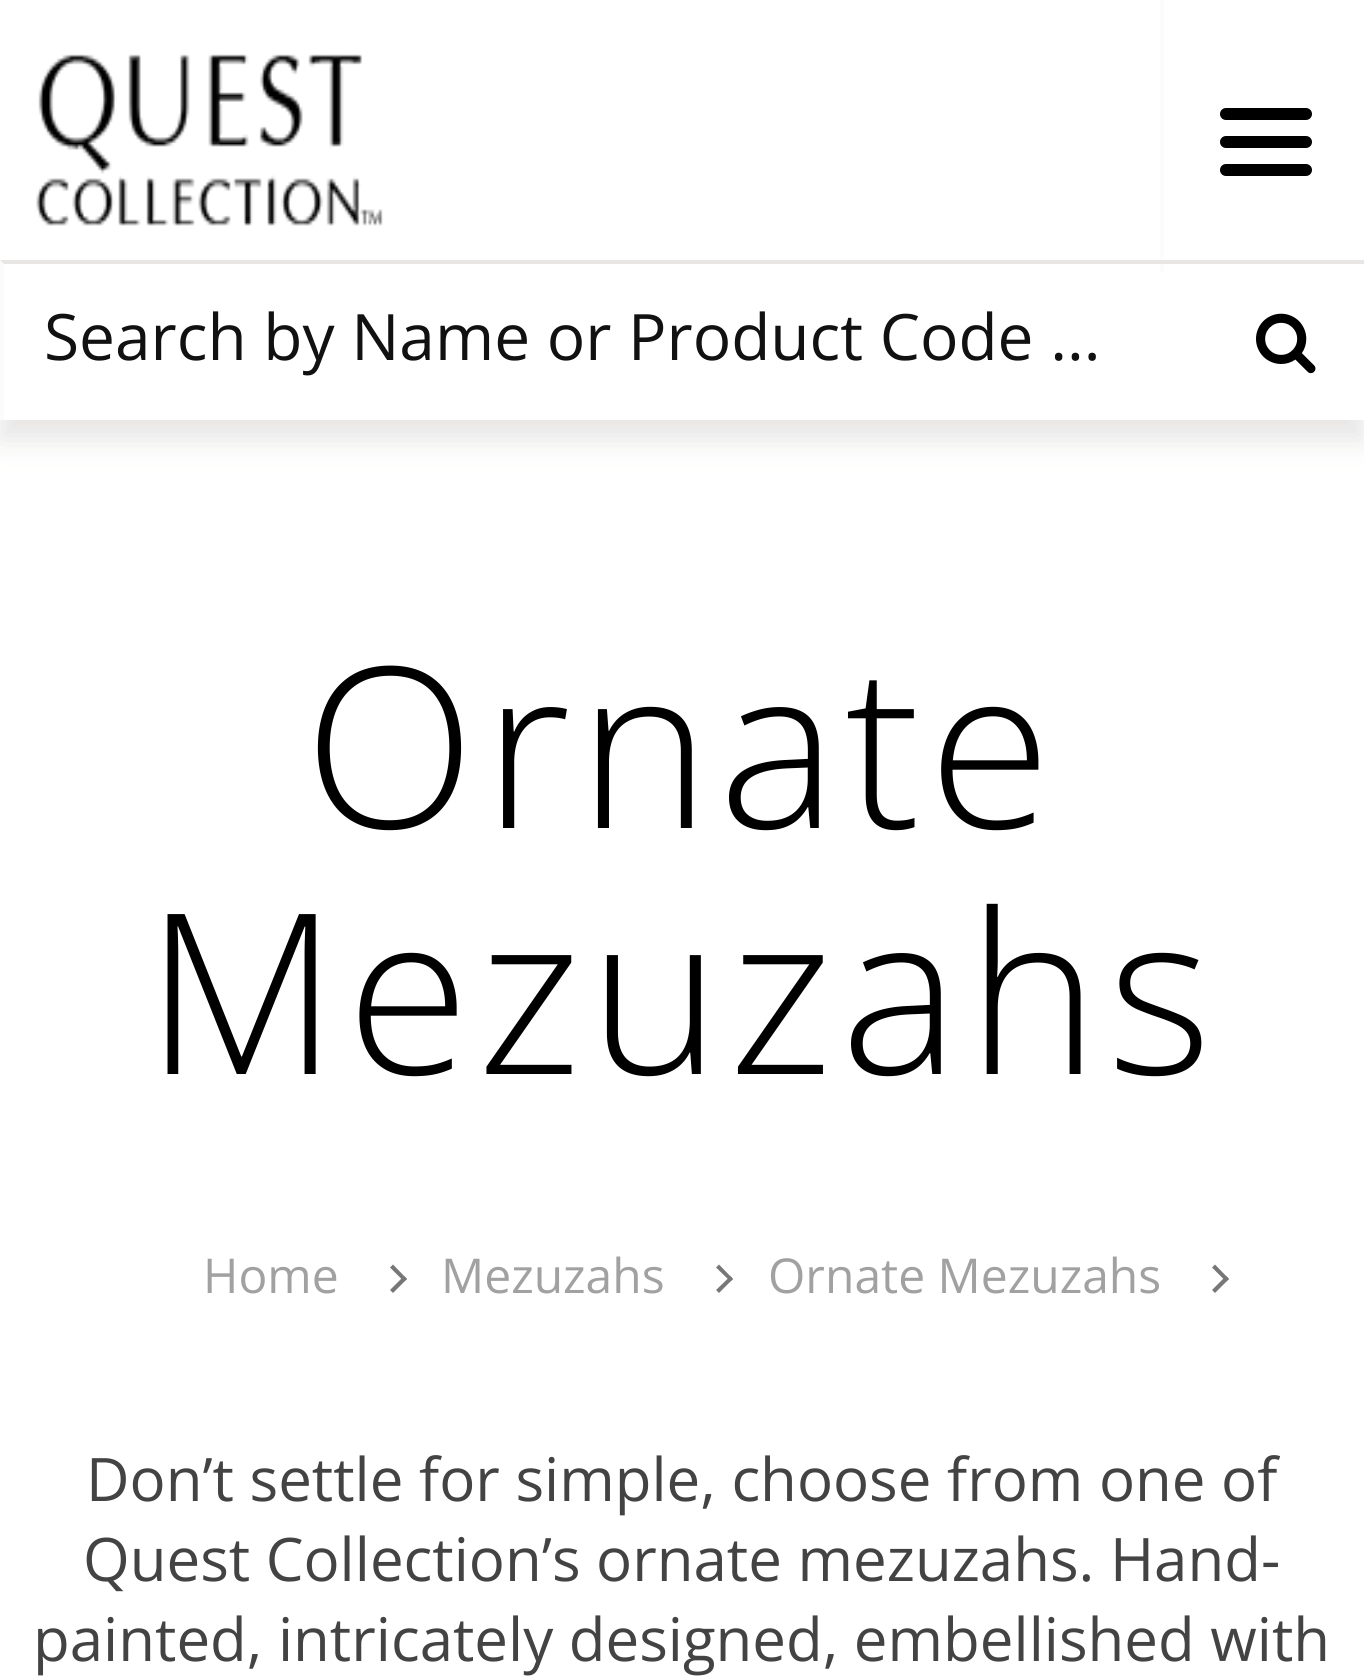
#include <cairo.h>
#include <math.h>
#include <stddef.h>

static cairo_t *ctx;

static void use_color(int r, int g, int b) {
    cairo_set_source_rgb(ctx, r / 255.0, g / 255.0, b / 255.0);
}

static void spaced_text(double x, double y, const char *s, double letter, double word) {
    cairo_move_to(ctx, x, y);
    while (*s) {
        char ch[5] = {0};
        int n = 0;
        do ch[n++] = *s++; while ((*s & 0xC0) == 0x80);
        cairo_show_text(ctx, ch);
        cairo_rel_move_to(ctx, letter + word * (*ch == ' '), 0);
    }
}

static void round_rect(double x, double y, double w, double h, double r) {
    cairo_new_sub_path(ctx);
    cairo_arc(ctx, x + w - r, y + h - r, r, 0, M_PI / 2);
    cairo_arc(ctx, x + r, y + h - r, r, M_PI / 2, M_PI);
    cairo_arc(ctx, x + r, y + r, r, M_PI, 1.5 * M_PI);
    cairo_arc(ctx, x + w - r, y + r, r, 1.5 * M_PI, 2 * M_PI);
    cairo_close_path(ctx);
}

static void shadow(double x, double y, double w, double h, double r, double blur, double alpha) {
    cairo_push_group_with_content(ctx, CAIRO_CONTENT_ALPHA);
    cairo_set_operator(ctx, CAIRO_OPERATOR_SOURCE);
    for (int i = 15; i >= -15 && fmin(w, h) + blur * i / 3 > 0; i -= 2) {
        double e = blur * i / 6;
        cairo_set_source_rgba(ctx, 0, 0, 0, alpha * erfc((i - 1) / 8.5) / 2);
        round_rect(x - e, y - e, w + 2 * e, h + 2 * e, fmax(0, fmin(r + e + blur * .6, fmin(w, h) / 2 + e)));
        cairo_fill(ctx);
    }
    cairo_pattern_t *soft = cairo_pop_group(ctx);
    cairo_mask(ctx, soft);
    cairo_pattern_destroy(soft);
}

static void picture(const char *path, double x, double y, double w, double h) {
    cairo_surface_t *image = cairo_image_surface_create_from_png(path);
    cairo_save(ctx);
    cairo_set_source_surface(ctx, image, x, y);
    cairo_rectangle(ctx, x, y, w, h);
    cairo_fill(ctx);
    cairo_restore(ctx);
    cairo_surface_destroy(image);
}

int main(void) {
    cairo_surface_t *surface = cairo_image_surface_create(CAIRO_FORMAT_RGB24, 1364, 1678);
    ctx = cairo_create(surface);
    cairo_font_options_t *options = cairo_font_options_create();
    cairo_font_options_set_hint_metrics(options, CAIRO_HINT_METRICS_OFF);
    cairo_font_options_set_hint_style(options, CAIRO_HINT_STYLE_NONE);
    cairo_set_font_options(ctx, options);
    cairo_set_miter_limit(ctx, 4);
    use_color(255, 255, 255);
    cairo_paint(ctx);
    cairo_save(ctx);
    cairo_rectangle(ctx, 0, 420, 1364, 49);
    cairo_clip(ctx);
    use_color(231, 230, 229);
    shadow(0, 20, 1364, 420, 0, 14, 1);
    cairo_restore(ctx);
    picture("img1.png", 36, 54, 347, 172);
    use_color(252, 252, 252);
    cairo_rectangle(ctx, 1160, 0, 4, 272);
    cairo_fill(ctx);
    use_color(0, 0, 0);
    round_rect(1220, 108, 92, 12, 6);
    cairo_fill(ctx);
    round_rect(1220, 136, 92, 12, 6);
    cairo_fill(ctx);
    round_rect(1220, 164, 92, 12, 6);
    cairo_fill(ctx);
    use_color(231, 230, 229);
    cairo_new_path(ctx);
    cairo_move_to(ctx, 0, 260);
    cairo_line_to(ctx, 1364, 260);
    cairo_line_to(ctx, 1364, 264);
    cairo_line_to(ctx, 4, 264);
    cairo_close_path(ctx);
    cairo_fill(ctx);
    cairo_set_source_rgba(ctx, 0.863, 0.863, 0.863, 0.09);
    cairo_new_path(ctx);
    cairo_move_to(ctx, 0, 420);
    cairo_line_to(ctx, 0, 260);
    cairo_line_to(ctx, 4, 264);
    cairo_line_to(ctx, 4, 420);
    cairo_close_path(ctx);
    cairo_fill(ctx);
    cairo_select_font_face(ctx, "Open Sans", CAIRO_FONT_SLANT_NORMAL, CAIRO_FONT_WEIGHT_NORMAL);
    cairo_set_font_size(ctx, 64);
    use_color(17, 17, 17);
    cairo_move_to(ctx, 44, 360);
    cairo_show_text(ctx, "Search by Name or Product Code ...");
    picture("img2.png", 1256, 313, 60, 61);
    cairo_select_font_face(ctx, "Open Sans Light", CAIRO_FONT_SLANT_NORMAL, CAIRO_FONT_WEIGHT_NORMAL);
    cairo_set_font_size(ctx, 224);
    use_color(0, 0, 0);
    spaced_text(304, 828, "Ornate", 8, 0);
    spaced_text(145, 1074, "Mezuzahs", 8, 0);
    cairo_select_font_face(ctx, "Open Sans", CAIRO_FONT_SLANT_NORMAL, CAIRO_FONT_WEIGHT_NORMAL);
    cairo_set_font_size(ctx, 48);
    use_color(161, 161, 161);
    cairo_move_to(ctx, 203, 1293);
    cairo_show_text(ctx, "Home");
    use_color(119, 119, 119);
    cairo_new_path(ctx);
    cairo_move_to(ctx, 390, 1267.5);
    cairo_line_to(ctx, 393, 1264.5);
    cairo_line_to(ctx, 407, 1279);
    cairo_line_to(ctx, 404, 1281.5);
    cairo_close_path(ctx);
    cairo_fill(ctx);
    cairo_new_path(ctx);
    cairo_move_to(ctx, 390, 1290);
    cairo_line_to(ctx, 404, 1276);
    cairo_line_to(ctx, 407, 1279);
    cairo_line_to(ctx, 393, 1293);
    cairo_close_path(ctx);
    cairo_fill(ctx);
    use_color(161, 161, 161);
    cairo_move_to(ctx, 441, 1293);
    cairo_show_text(ctx, "Mezuzahs");
    use_color(119, 119, 119);
    cairo_new_path(ctx);
    cairo_move_to(ctx, 716, 1267.5);
    cairo_line_to(ctx, 719, 1264.5);
    cairo_line_to(ctx, 733, 1279);
    cairo_line_to(ctx, 730.5, 1281.5);
    cairo_close_path(ctx);
    cairo_fill(ctx);
    cairo_new_path(ctx);
    cairo_move_to(ctx, 716, 1290);
    cairo_line_to(ctx, 730.5, 1276);
    cairo_line_to(ctx, 733, 1279);
    cairo_line_to(ctx, 719, 1293);
    cairo_close_path(ctx);
    cairo_fill(ctx);
    use_color(161, 161, 161);
    cairo_move_to(ctx, 768, 1293);
    cairo_show_text(ctx, "Ornate Mezuzahs");
    use_color(119, 119, 119);
    cairo_new_path(ctx);
    cairo_move_to(ctx, 1212, 1267.5);
    cairo_line_to(ctx, 1215, 1264.5);
    cairo_line_to(ctx, 1229, 1279);
    cairo_line_to(ctx, 1226, 1281.5);
    cairo_close_path(ctx);
    cairo_fill(ctx);
    cairo_new_path(ctx);
    cairo_move_to(ctx, 1212, 1290);
    cairo_line_to(ctx, 1226, 1276);
    cairo_line_to(ctx, 1229, 1279);
    cairo_line_to(ctx, 1215, 1293);
    cairo_close_path(ctx);
    cairo_fill(ctx);
    cairo_set_font_size(ctx, 60);
    use_color(68, 67, 67);
    cairo_move_to(ctx, 86, 1501);
    cairo_show_text(ctx, "Don’t settle for simple, choose from one of");
    cairo_move_to(ctx, 83, 1581);
    cairo_show_text(ctx, "Quest Collection’s ornate mezuzahs. Hand-");
    cairo_move_to(ctx, 33, 1661);
    cairo_show_text(ctx, "painted, intricately designed, embellished with");
    cairo_surface_write_to_png(surface, "result.png");
    cairo_font_options_destroy(options);
    cairo_destroy(ctx);
    cairo_surface_destroy(surface);
    return 0;
}
